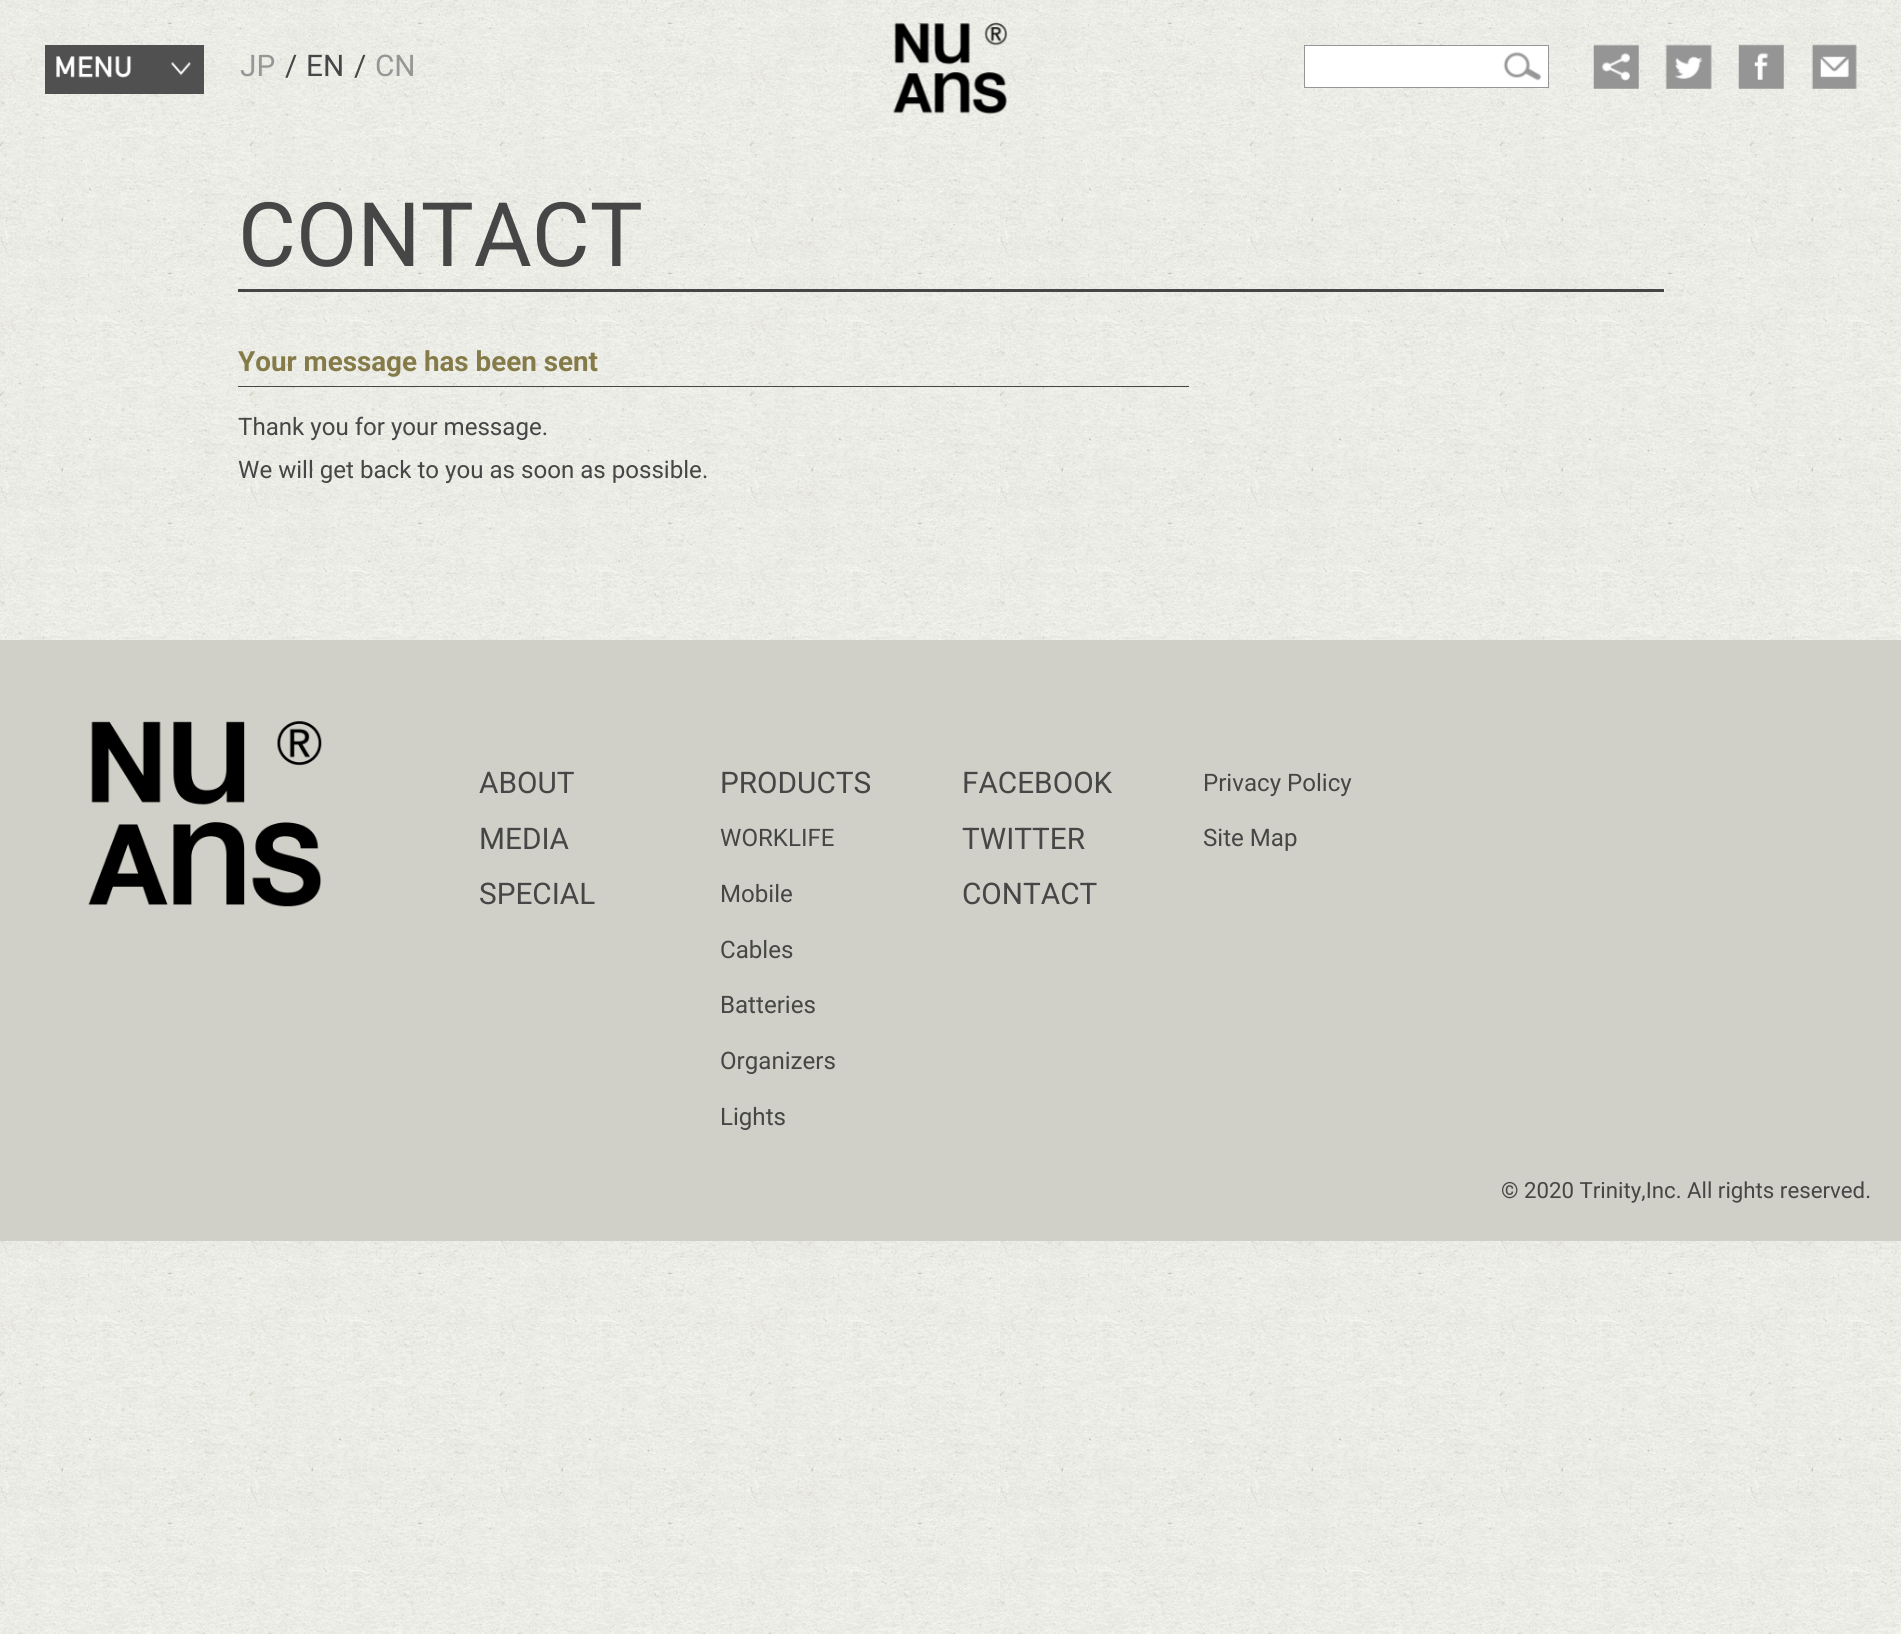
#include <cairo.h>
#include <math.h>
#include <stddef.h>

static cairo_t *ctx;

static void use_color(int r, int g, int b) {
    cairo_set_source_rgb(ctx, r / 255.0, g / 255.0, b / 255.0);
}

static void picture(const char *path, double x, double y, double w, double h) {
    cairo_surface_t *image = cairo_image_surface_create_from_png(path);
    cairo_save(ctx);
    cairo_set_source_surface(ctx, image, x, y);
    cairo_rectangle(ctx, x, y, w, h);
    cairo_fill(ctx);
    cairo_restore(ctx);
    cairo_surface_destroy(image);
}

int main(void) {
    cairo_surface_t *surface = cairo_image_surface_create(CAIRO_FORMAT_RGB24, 1901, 1634);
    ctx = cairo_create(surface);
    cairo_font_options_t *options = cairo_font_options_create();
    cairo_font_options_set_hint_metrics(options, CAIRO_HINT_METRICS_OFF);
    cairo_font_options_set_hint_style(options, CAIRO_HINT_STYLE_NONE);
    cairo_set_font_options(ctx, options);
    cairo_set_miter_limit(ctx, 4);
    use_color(255, 255, 255);
    cairo_paint(ctx);
    picture("img1.png", 0, 0, 1901, 1634);
    use_color(80, 80, 80);
    cairo_rectangle(ctx, 45, 45, 159, 49);
    cairo_fill(ctx);
    picture("img2.png", 56, 56, 76, 22);
    picture("img3.png", 171, 62, 20, 14);
    cairo_select_font_face(ctx, "Roboto", CAIRO_FONT_SLANT_NORMAL, CAIRO_FONT_WEIGHT_NORMAL);
    cairo_set_font_size(ctx, 29.75);
    use_color(150, 150, 150);
    cairo_move_to(ctx, 240, 76);
    cairo_show_text(ctx, "JP");
    use_color(70, 70, 70);
    cairo_move_to(ctx, 285, 76);
    cairo_show_text(ctx, "/");
    cairo_move_to(ctx, 306, 76);
    cairo_show_text(ctx, "EN");
    cairo_move_to(ctx, 354, 76);
    cairo_show_text(ctx, "/");
    use_color(150, 150, 150);
    cairo_move_to(ctx, 375, 76);
    cairo_show_text(ctx, "CN");
    picture("img4.png", 893, 22, 115, 93);
    use_color(255, 255, 255);
    cairo_rectangle(ctx, 1304.5, 45.5, 244, 42);
    cairo_fill_preserve(ctx);
    use_color(150, 150, 150);
    cairo_set_line_width(ctx, 1);
    cairo_stroke(ctx);
    picture("img5.png", 1503, 51, 39, 30);
    picture("img6.png", 1593, 44, 46, 45);
    picture("img7.png", 1665, 44, 47, 45);
    picture("img8.png", 1738, 44, 46, 45);
    picture("img9.png", 1811, 44, 46, 45);
    use_color(70, 70, 70);
    cairo_rectangle(ctx, 238, 289, 1426, 3);
    cairo_fill(ctx);
    cairo_set_font_size(ctx, 89);
    cairo_move_to(ctx, 238, 266);
    cairo_show_text(ctx, "CONTACT");
    cairo_rectangle(ctx, 238, 386, 951, 1);
    cairo_fill(ctx);
    cairo_select_font_face(ctx, "Roboto", CAIRO_FONT_SLANT_NORMAL, CAIRO_FONT_WEIGHT_BOLD);
    cairo_set_font_size(ctx, 27.8);
    use_color(133, 123, 73);
    cairo_move_to(ctx, 238, 371);
    cairo_show_text(ctx, "Your message has been sent");
    cairo_select_font_face(ctx, "Roboto", CAIRO_FONT_SLANT_NORMAL, CAIRO_FONT_WEIGHT_NORMAL);
    cairo_set_font_size(ctx, 24.1);
    use_color(70, 70, 70);
    cairo_move_to(ctx, 238, 435);
    cairo_show_text(ctx, "Thank you for your message.");
    cairo_move_to(ctx, 238, 478);
    cairo_show_text(ctx, "We will get back to you as soon as possible.");
    use_color(208, 208, 200);
    cairo_rectangle(ctx, 0, 640, 1901, 601);
    cairo_fill(ctx);
    picture("img10.png", 88, 721, 234, 186);
    cairo_set_font_size(ctx, 29.75);
    use_color(70, 70, 70);
    cairo_move_to(ctx, 479, 793);
    cairo_show_text(ctx, "ABOUT");
    cairo_move_to(ctx, 479, 849);
    cairo_show_text(ctx, "MEDIA");
    cairo_move_to(ctx, 479, 904);
    cairo_show_text(ctx, "SPECIAL");
    cairo_move_to(ctx, 720, 793);
    cairo_show_text(ctx, "PRODUCTS");
    cairo_set_font_size(ctx, 24.1);
    cairo_move_to(ctx, 720, 846);
    cairo_show_text(ctx, "WORKLIFE");
    cairo_move_to(ctx, 720, 902);
    cairo_show_text(ctx, "Mobile");
    cairo_move_to(ctx, 720, 958);
    cairo_show_text(ctx, "Cables");
    cairo_move_to(ctx, 720, 1013);
    cairo_show_text(ctx, "Batteries");
    cairo_move_to(ctx, 720, 1069);
    cairo_show_text(ctx, "Organizers");
    cairo_move_to(ctx, 720, 1125);
    cairo_show_text(ctx, "Lights");
    cairo_set_font_size(ctx, 29.75);
    cairo_move_to(ctx, 962, 793);
    cairo_show_text(ctx, "FACEBOOK");
    cairo_move_to(ctx, 962, 849);
    cairo_show_text(ctx, "TWITTER");
    cairo_move_to(ctx, 962, 904);
    cairo_show_text(ctx, "CONTACT");
    cairo_set_font_size(ctx, 24.1);
    cairo_move_to(ctx, 1203, 791);
    cairo_show_text(ctx, "Privacy Policy");
    cairo_move_to(ctx, 1203, 846);
    cairo_show_text(ctx, "Site Map");
    cairo_set_font_size(ctx, 22.25);
    cairo_move_to(ctx, 1501, 1198);
    cairo_show_text(ctx, "© 2020 Trinity,Inc. All rights reserved.");
    cairo_surface_write_to_png(surface, "result.png");
    cairo_font_options_destroy(options);
    cairo_destroy(ctx);
    cairo_surface_destroy(surface);
    return 0;
}
